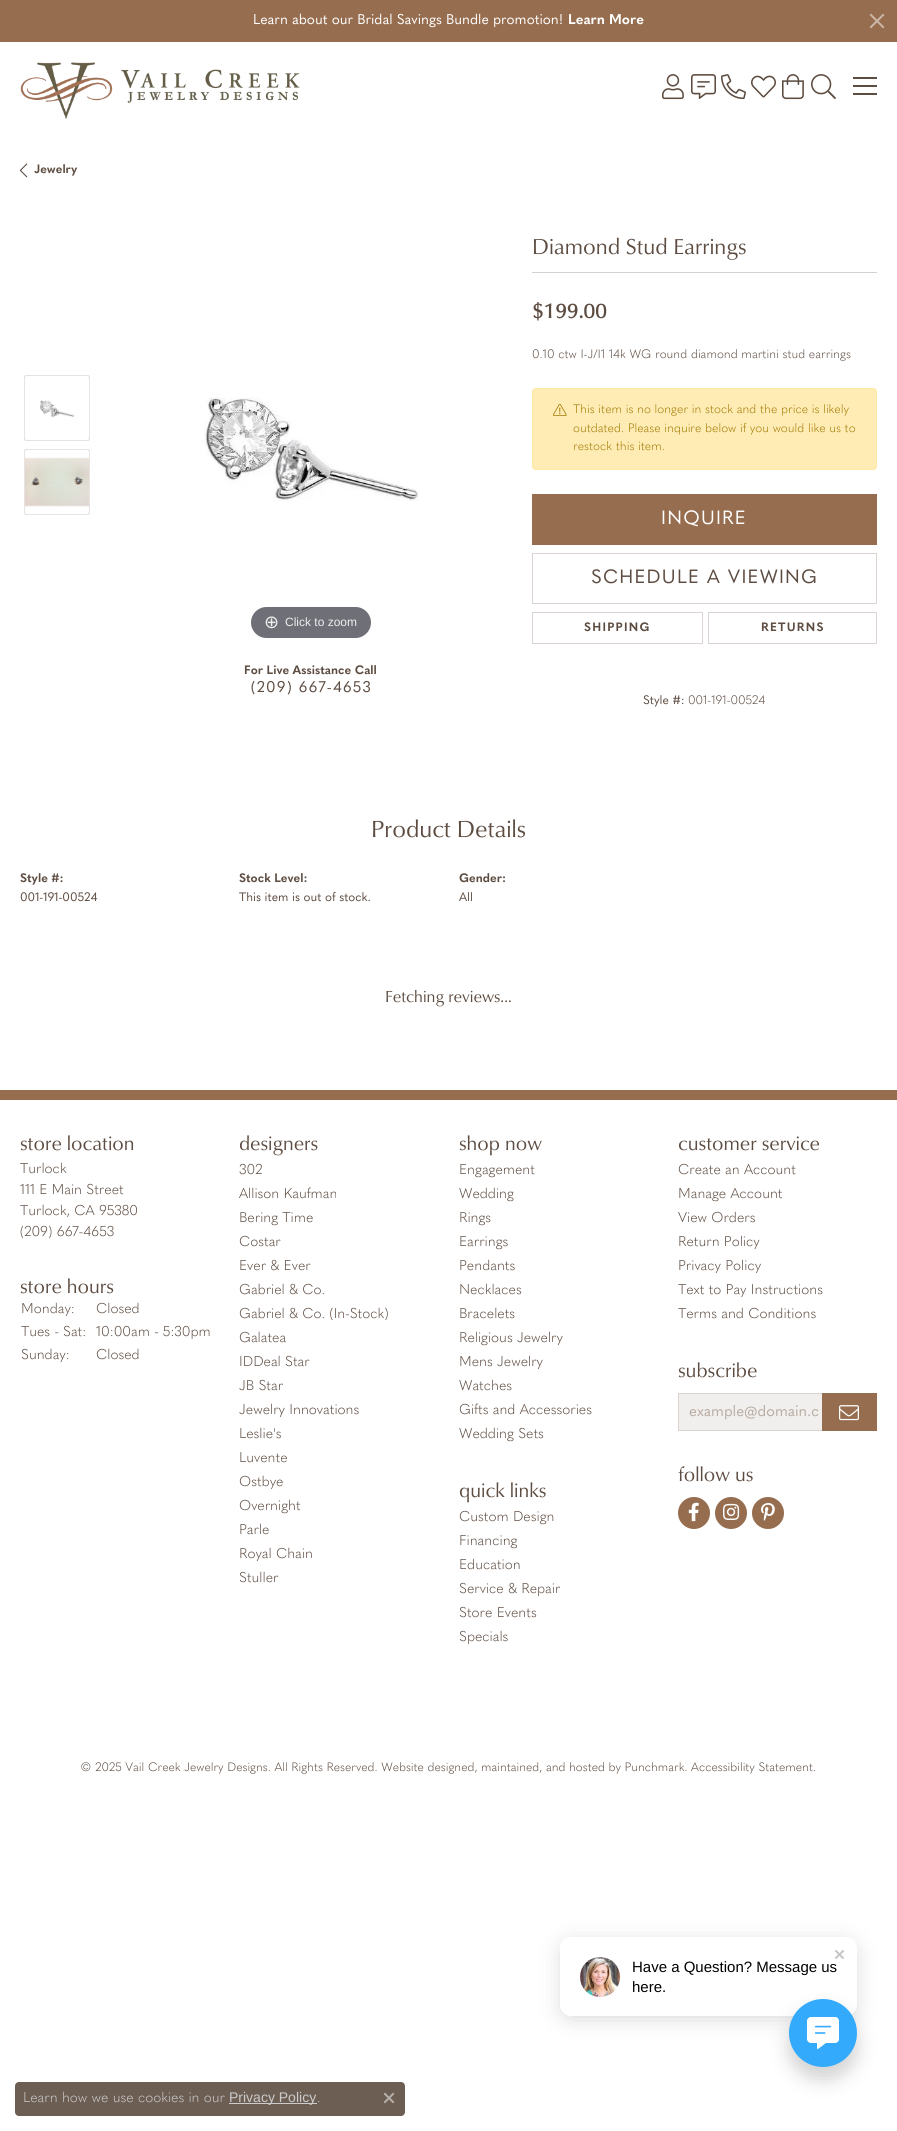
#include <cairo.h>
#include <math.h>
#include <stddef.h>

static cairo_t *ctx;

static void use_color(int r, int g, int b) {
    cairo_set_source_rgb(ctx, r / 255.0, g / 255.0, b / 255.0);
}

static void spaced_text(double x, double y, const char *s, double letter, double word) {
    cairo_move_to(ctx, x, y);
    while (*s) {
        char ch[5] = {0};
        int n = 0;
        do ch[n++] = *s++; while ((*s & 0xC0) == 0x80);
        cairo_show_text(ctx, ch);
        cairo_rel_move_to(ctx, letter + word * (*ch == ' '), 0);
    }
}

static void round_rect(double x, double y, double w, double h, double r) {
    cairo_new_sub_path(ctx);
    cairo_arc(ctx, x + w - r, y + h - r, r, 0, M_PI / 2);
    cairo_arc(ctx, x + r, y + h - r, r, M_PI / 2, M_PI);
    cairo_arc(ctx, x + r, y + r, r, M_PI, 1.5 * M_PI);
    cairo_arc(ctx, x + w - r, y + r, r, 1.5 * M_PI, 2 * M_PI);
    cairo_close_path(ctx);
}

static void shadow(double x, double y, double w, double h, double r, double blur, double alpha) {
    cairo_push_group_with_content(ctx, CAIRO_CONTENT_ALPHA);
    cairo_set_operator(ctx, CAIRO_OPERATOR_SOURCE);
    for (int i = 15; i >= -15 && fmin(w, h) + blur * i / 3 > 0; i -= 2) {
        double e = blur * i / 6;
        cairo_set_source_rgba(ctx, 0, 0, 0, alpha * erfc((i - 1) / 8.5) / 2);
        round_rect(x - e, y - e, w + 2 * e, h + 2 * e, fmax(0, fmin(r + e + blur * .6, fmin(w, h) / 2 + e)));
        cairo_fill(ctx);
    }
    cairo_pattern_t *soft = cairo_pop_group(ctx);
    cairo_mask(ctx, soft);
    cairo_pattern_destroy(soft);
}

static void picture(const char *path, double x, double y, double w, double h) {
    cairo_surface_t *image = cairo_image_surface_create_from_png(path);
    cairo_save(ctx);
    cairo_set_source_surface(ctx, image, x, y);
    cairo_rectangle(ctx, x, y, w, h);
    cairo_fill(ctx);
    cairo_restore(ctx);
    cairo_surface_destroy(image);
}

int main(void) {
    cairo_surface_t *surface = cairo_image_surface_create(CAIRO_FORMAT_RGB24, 897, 2131);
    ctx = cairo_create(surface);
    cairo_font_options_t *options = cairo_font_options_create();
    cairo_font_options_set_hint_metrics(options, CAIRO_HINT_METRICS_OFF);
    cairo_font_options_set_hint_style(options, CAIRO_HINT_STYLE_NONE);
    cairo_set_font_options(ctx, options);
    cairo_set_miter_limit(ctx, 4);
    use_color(255, 255, 255);
    cairo_paint(ctx);
    use_color(150, 109, 79);
    cairo_rectangle(ctx, 0, 0, 897, 42);
    cairo_fill(ctx);
    cairo_select_font_face(ctx, "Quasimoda", CAIRO_FONT_SLANT_NORMAL, CAIRO_FONT_WEIGHT_NORMAL);
    cairo_set_font_size(ctx, 14);
    use_color(255, 255, 255);
    cairo_move_to(ctx, 253, 24);
    cairo_show_text(ctx, "Learn about our Bridal Savings Bundle promotion!");
    cairo_select_font_face(ctx, "Quasimoda", CAIRO_FONT_SLANT_NORMAL, CAIRO_FONT_WEIGHT_BOLD);
    cairo_move_to(ctx, 568, 24);
    cairo_show_text(ctx, "Learn More");
    picture("img1.png", 869, 13, 16, 16);
    picture("img2.png", 20, 62, 280, 57);
    picture("img3.png", 662, 74, 22, 26);
    picture("img4.png", 691, 74, 25, 26);
    picture("img5.png", 721, 74, 25, 26);
    picture("img6.png", 751, 75, 25, 23);
    picture("img7.png", 782, 74, 22, 26);
    picture("img8.png", 811, 74, 25, 25);
    use_color(93, 76, 65);
    cairo_rectangle(ctx, 853, 77, 24, 2);
    cairo_fill(ctx);
    cairo_rectangle(ctx, 853, 85, 24, 2);
    cairo_fill(ctx);
    cairo_rectangle(ctx, 853, 93, 24, 2);
    cairo_fill(ctx);
    picture("img9.png", 19, 163, 9, 15);
    cairo_set_font_size(ctx, 12);
    cairo_move_to(ctx, 34, 173);
    cairo_show_text(ctx, "Jewelry");
    use_color(241, 239, 237);
    round_rect(24.5, 375.5, 65, 65, 1.5);
    cairo_fill_preserve(ctx);
    use_color(230, 227, 224);
    cairo_set_line_width(ctx, 1);
    cairo_stroke(ctx);
    picture("img10.png", 25, 376, 64, 64);
    use_color(241, 239, 237);
    round_rect(24.5, 449.5, 65, 65, 1.5);
    cairo_fill_preserve(ctx);
    use_color(230, 227, 224);
    cairo_stroke(ctx);
    picture("img11.png", 25, 450, 64, 64);
    picture("img12.png", 201, 397, 218, 104);
    use_color(111, 112, 119);
    round_rect(251, 607, 120, 31, 15.5);
    cairo_fill(ctx);
    cairo_select_font_face(ctx, "DejaVu Sans", CAIRO_FONT_SLANT_NORMAL, CAIRO_FONT_WEIGHT_NORMAL);
    cairo_set_font_size(ctx, 18);
    use_color(238, 238, 238);
    cairo_move_to(ctx, 264, 628);
    cairo_show_text(ctx, "⊕");
    cairo_select_font_face(ctx, "Liberation Sans", CAIRO_FONT_SLANT_NORMAL, CAIRO_FONT_WEIGHT_NORMAL);
    cairo_set_font_size(ctx, 12);
    cairo_move_to(ctx, 285, 626);
    cairo_show_text(ctx, "Click to zoom");
    cairo_select_font_face(ctx, "Quasimoda", CAIRO_FONT_SLANT_NORMAL, CAIRO_FONT_WEIGHT_BOLD);
    cairo_set_font_size(ctx, 12.1);
    use_color(93, 76, 65);
    cairo_move_to(ctx, 244, 674);
    cairo_show_text(ctx, "For Live Assistance Call");
    cairo_select_font_face(ctx, "Quasimoda", CAIRO_FONT_SLANT_NORMAL, CAIRO_FONT_WEIGHT_NORMAL);
    cairo_set_font_size(ctx, 15.25);
    spaced_text(251, 692, "(209) 667-4653", 1.25, 0);
    cairo_select_font_face(ctx, "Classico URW", CAIRO_FONT_SLANT_NORMAL, CAIRO_FONT_WEIGHT_NORMAL);
    cairo_set_font_size(ctx, 22.25);
    cairo_move_to(ctx, 532, 254);
    cairo_show_text(ctx, "Diamond Stud Earrings");
    use_color(215, 209, 206);
    cairo_rectangle(ctx, 532, 272, 345, 1);
    cairo_fill(ctx);
    cairo_select_font_face(ctx, "Classico URW", CAIRO_FONT_SLANT_NORMAL, CAIRO_FONT_WEIGHT_BOLD);
    cairo_set_font_size(ctx, 21);
    use_color(93, 76, 65);
    cairo_move_to(ctx, 532, 318);
    cairo_show_text(ctx, "$199.00");
    cairo_select_font_face(ctx, "Quasimoda Light", CAIRO_FONT_SLANT_NORMAL, CAIRO_FONT_WEIGHT_NORMAL);
    cairo_set_font_size(ctx, 12.1);
    cairo_move_to(ctx, 532, 358);
    cairo_show_text(ctx, "0.10 ctw I-J/I1 14k WG round diamond martini stud earrings");
    use_color(255, 236, 181);
    round_rect(532, 388, 345, 82, 4);
    cairo_fill(ctx);
    round_rect(532.5, 388.5, 344, 81, 3.5);
    cairo_set_source_rgba(ctx, 1, 0.757, 0.027, 0.1);
    cairo_stroke(ctx);
    picture("img13.png", 553, 403, 14, 13);
    use_color(160, 120, 0);
    cairo_move_to(ctx, 573, 413);
    cairo_show_text(ctx, "This item is no longer in stock and the price is likely");
    cairo_move_to(ctx, 573, 432);
    cairo_show_text(ctx, "outdated. Please inquire below if you would like us to");
    cairo_move_to(ctx, 573, 450);
    cairo_show_text(ctx, "restock this item.");
    use_color(150, 109, 79);
    cairo_rectangle(ctx, 532, 494, 345, 51);
    cairo_fill(ctx);
    cairo_select_font_face(ctx, "Quasimoda", CAIRO_FONT_SLANT_NORMAL, CAIRO_FONT_WEIGHT_NORMAL);
    cairo_set_font_size(ctx, 19);
    use_color(255, 255, 255);
    spaced_text(661, 524, "INQUIRE", 1.25, 0);
    cairo_rectangle(ctx, 532.5, 553.5, 344, 50);
    use_color(219, 212, 208);
    cairo_stroke(ctx);
    use_color(93, 76, 65);
    spaced_text(591, 583, "SCHEDULE A VIEWING", 1.25, 0);
    cairo_rectangle(ctx, 532.5, 612.5, 170, 31);
    use_color(219, 212, 208);
    cairo_stroke(ctx);
    cairo_select_font_face(ctx, "Quasimoda", CAIRO_FONT_SLANT_NORMAL, CAIRO_FONT_WEIGHT_BOLD);
    cairo_set_font_size(ctx, 12);
    use_color(93, 76, 65);
    spaced_text(584, 631, "SHIPPING", 1.25, 0);
    cairo_rectangle(ctx, 708.5, 612.5, 168, 31);
    use_color(219, 212, 208);
    cairo_stroke(ctx);
    use_color(93, 76, 65);
    spaced_text(761, 631, "RETURNS", 1.25, 0);
    cairo_select_font_face(ctx, "Quasimoda", CAIRO_FONT_SLANT_NORMAL, CAIRO_FONT_WEIGHT_NORMAL);
    cairo_set_font_size(ctx, 12.1);
    cairo_move_to(ctx, 643, 704);
    cairo_show_text(ctx, "Style #:");
    cairo_select_font_face(ctx, "Quasimoda Light", CAIRO_FONT_SLANT_NORMAL, CAIRO_FONT_WEIGHT_NORMAL);
    cairo_move_to(ctx, 688, 704);
    cairo_show_text(ctx, "001-191-00524");
    cairo_select_font_face(ctx, "Classico URW", CAIRO_FONT_SLANT_NORMAL, CAIRO_FONT_WEIGHT_NORMAL);
    cairo_set_font_size(ctx, 24);
    cairo_move_to(ctx, 371, 837);
    cairo_show_text(ctx, "Product Details");
    cairo_select_font_face(ctx, "Quasimoda", CAIRO_FONT_SLANT_NORMAL, CAIRO_FONT_WEIGHT_BOLD);
    cairo_set_font_size(ctx, 12.1);
    cairo_move_to(ctx, 20, 882);
    cairo_show_text(ctx, "Style #:");
    cairo_select_font_face(ctx, "Quasimoda", CAIRO_FONT_SLANT_NORMAL, CAIRO_FONT_WEIGHT_NORMAL);
    cairo_move_to(ctx, 20, 901);
    cairo_show_text(ctx, "001-191-00524");
    cairo_select_font_face(ctx, "Quasimoda", CAIRO_FONT_SLANT_NORMAL, CAIRO_FONT_WEIGHT_BOLD);
    cairo_move_to(ctx, 239, 882);
    cairo_show_text(ctx, "Stock Level:");
    cairo_select_font_face(ctx, "Quasimoda", CAIRO_FONT_SLANT_NORMAL, CAIRO_FONT_WEIGHT_NORMAL);
    cairo_move_to(ctx, 239, 901);
    cairo_show_text(ctx, "This item is out of stock.");
    cairo_select_font_face(ctx, "Quasimoda", CAIRO_FONT_SLANT_NORMAL, CAIRO_FONT_WEIGHT_BOLD);
    cairo_move_to(ctx, 459, 882);
    cairo_show_text(ctx, "Gender:");
    cairo_select_font_face(ctx, "Quasimoda", CAIRO_FONT_SLANT_NORMAL, CAIRO_FONT_WEIGHT_NORMAL);
    cairo_move_to(ctx, 459, 901);
    cairo_show_text(ctx, "All");
    cairo_select_font_face(ctx, "Classico URW", CAIRO_FONT_SLANT_NORMAL, CAIRO_FONT_WEIGHT_NORMAL);
    cairo_set_font_size(ctx, 16.5);
    cairo_move_to(ctx, 385, 1002);
    cairo_show_text(ctx, "Fetching reviews...");
    use_color(150, 109, 79);
    cairo_rectangle(ctx, 0, 1090, 897, 10);
    cairo_fill(ctx);
    cairo_set_font_size(ctx, 20);
    use_color(93, 76, 65);
    cairo_move_to(ctx, 20, 1150);
    cairo_show_text(ctx, "store location");
    cairo_select_font_face(ctx, "Quasimoda Light", CAIRO_FONT_SLANT_NORMAL, CAIRO_FONT_WEIGHT_NORMAL);
    cairo_set_font_size(ctx, 14);
    cairo_move_to(ctx, 20, 1173);
    cairo_show_text(ctx, "Turlock");
    cairo_move_to(ctx, 20, 1194);
    cairo_show_text(ctx, "111 E Main Street");
    cairo_move_to(ctx, 20, 1215);
    cairo_show_text(ctx, "Turlock, CA 95380");
    cairo_move_to(ctx, 20, 1236);
    cairo_show_text(ctx, "(209) 667-4653");
    cairo_select_font_face(ctx, "Classico URW", CAIRO_FONT_SLANT_NORMAL, CAIRO_FONT_WEIGHT_NORMAL);
    cairo_set_font_size(ctx, 20);
    cairo_move_to(ctx, 20, 1293);
    cairo_show_text(ctx, "store hours");
    cairo_select_font_face(ctx, "Quasimoda Light", CAIRO_FONT_SLANT_NORMAL, CAIRO_FONT_WEIGHT_NORMAL);
    cairo_set_font_size(ctx, 14);
    cairo_move_to(ctx, 21, 1313);
    cairo_show_text(ctx, "Monday:");
    cairo_move_to(ctx, 96, 1313);
    cairo_show_text(ctx, "Closed");
    cairo_move_to(ctx, 21, 1336);
    cairo_show_text(ctx, "Tues - Sat:");
    cairo_move_to(ctx, 96, 1336);
    cairo_show_text(ctx, "10:00am - 5:30pm");
    cairo_move_to(ctx, 21, 1359);
    cairo_show_text(ctx, "Sunday:");
    cairo_move_to(ctx, 96, 1359);
    cairo_show_text(ctx, "Closed");
    cairo_select_font_face(ctx, "Classico URW", CAIRO_FONT_SLANT_NORMAL, CAIRO_FONT_WEIGHT_NORMAL);
    cairo_set_font_size(ctx, 20);
    cairo_move_to(ctx, 239, 1150);
    cairo_show_text(ctx, "designers");
    cairo_select_font_face(ctx, "Quasimoda Light", CAIRO_FONT_SLANT_NORMAL, CAIRO_FONT_WEIGHT_NORMAL);
    cairo_set_font_size(ctx, 14);
    cairo_move_to(ctx, 239, 1174);
    cairo_show_text(ctx, "302");
    cairo_move_to(ctx, 239, 1198);
    cairo_show_text(ctx, "Allison Kaufman");
    cairo_move_to(ctx, 239, 1222);
    cairo_show_text(ctx, "Bering Time");
    cairo_move_to(ctx, 239, 1246);
    cairo_show_text(ctx, "Costar");
    cairo_move_to(ctx, 239, 1270);
    cairo_show_text(ctx, "Ever & Ever");
    cairo_move_to(ctx, 239, 1294);
    cairo_show_text(ctx, "Gabriel & Co.");
    cairo_move_to(ctx, 239, 1318);
    cairo_show_text(ctx, "Gabriel & Co. (In-Stock)");
    cairo_move_to(ctx, 239, 1342);
    cairo_show_text(ctx, "Galatea");
    cairo_move_to(ctx, 239, 1366);
    cairo_show_text(ctx, "IDDeal Star");
    cairo_move_to(ctx, 239, 1390);
    cairo_show_text(ctx, "JB Star");
    cairo_move_to(ctx, 239, 1414);
    cairo_show_text(ctx, "Jewelry Innovations");
    cairo_move_to(ctx, 239, 1438);
    cairo_show_text(ctx, "Leslie's");
    cairo_move_to(ctx, 239, 1462);
    cairo_show_text(ctx, "Luvente");
    cairo_move_to(ctx, 239, 1486);
    cairo_show_text(ctx, "Ostbye");
    cairo_move_to(ctx, 239, 1510);
    cairo_show_text(ctx, "Overnight");
    cairo_move_to(ctx, 239, 1534);
    cairo_show_text(ctx, "Parle");
    cairo_move_to(ctx, 239, 1558);
    cairo_show_text(ctx, "Royal Chain");
    cairo_move_to(ctx, 239, 1582);
    cairo_show_text(ctx, "Stuller");
    cairo_select_font_face(ctx, "Classico URW", CAIRO_FONT_SLANT_NORMAL, CAIRO_FONT_WEIGHT_NORMAL);
    cairo_set_font_size(ctx, 20);
    cairo_move_to(ctx, 459, 1150);
    cairo_show_text(ctx, "shop now");
    cairo_select_font_face(ctx, "Quasimoda Light", CAIRO_FONT_SLANT_NORMAL, CAIRO_FONT_WEIGHT_NORMAL);
    cairo_set_font_size(ctx, 14);
    cairo_move_to(ctx, 459, 1174);
    cairo_show_text(ctx, "Engagement");
    cairo_move_to(ctx, 459, 1198);
    cairo_show_text(ctx, "Wedding");
    cairo_move_to(ctx, 459, 1222);
    cairo_show_text(ctx, "Rings");
    cairo_move_to(ctx, 459, 1246);
    cairo_show_text(ctx, "Earrings");
    cairo_move_to(ctx, 459, 1270);
    cairo_show_text(ctx, "Pendants");
    cairo_move_to(ctx, 459, 1294);
    cairo_show_text(ctx, "Necklaces");
    cairo_move_to(ctx, 459, 1318);
    cairo_show_text(ctx, "Bracelets");
    cairo_move_to(ctx, 459, 1342);
    cairo_show_text(ctx, "Religious Jewelry");
    cairo_move_to(ctx, 459, 1366);
    cairo_show_text(ctx, "Mens Jewelry");
    cairo_move_to(ctx, 459, 1390);
    cairo_show_text(ctx, "Watches");
    cairo_move_to(ctx, 459, 1414);
    cairo_show_text(ctx, "Gifts and Accessories");
    cairo_move_to(ctx, 459, 1438);
    cairo_show_text(ctx, "Wedding Sets");
    cairo_select_font_face(ctx, "Classico URW", CAIRO_FONT_SLANT_NORMAL, CAIRO_FONT_WEIGHT_NORMAL);
    cairo_set_font_size(ctx, 20);
    cairo_move_to(ctx, 459, 1497);
    cairo_show_text(ctx, "quick links");
    cairo_select_font_face(ctx, "Quasimoda Light", CAIRO_FONT_SLANT_NORMAL, CAIRO_FONT_WEIGHT_NORMAL);
    cairo_set_font_size(ctx, 14);
    cairo_move_to(ctx, 459, 1521);
    cairo_show_text(ctx, "Custom Design");
    cairo_move_to(ctx, 459, 1545);
    cairo_show_text(ctx, "Financing");
    cairo_move_to(ctx, 459, 1569);
    cairo_show_text(ctx, "Education");
    cairo_move_to(ctx, 459, 1593);
    cairo_show_text(ctx, "Service & Repair");
    cairo_move_to(ctx, 459, 1617);
    cairo_show_text(ctx, "Store Events");
    cairo_move_to(ctx, 459, 1641);
    cairo_show_text(ctx, "Specials");
    cairo_select_font_face(ctx, "Classico URW", CAIRO_FONT_SLANT_NORMAL, CAIRO_FONT_WEIGHT_NORMAL);
    cairo_set_font_size(ctx, 20);
    cairo_move_to(ctx, 678, 1150);
    cairo_show_text(ctx, "customer service");
    cairo_select_font_face(ctx, "Quasimoda Light", CAIRO_FONT_SLANT_NORMAL, CAIRO_FONT_WEIGHT_NORMAL);
    cairo_set_font_size(ctx, 14);
    cairo_move_to(ctx, 678, 1174);
    cairo_show_text(ctx, "Create an Account");
    cairo_move_to(ctx, 678, 1198);
    cairo_show_text(ctx, "Manage Account");
    cairo_move_to(ctx, 678, 1222);
    cairo_show_text(ctx, "View Orders");
    cairo_move_to(ctx, 678, 1246);
    cairo_show_text(ctx, "Return Policy");
    cairo_move_to(ctx, 678, 1270);
    cairo_show_text(ctx, "Privacy Policy");
    cairo_move_to(ctx, 678, 1294);
    cairo_show_text(ctx, "Text to Pay Instructions");
    cairo_move_to(ctx, 678, 1318);
    cairo_show_text(ctx, "Terms and Conditions");
    cairo_select_font_face(ctx, "Classico URW", CAIRO_FONT_SLANT_NORMAL, CAIRO_FONT_WEIGHT_NORMAL);
    cairo_set_font_size(ctx, 20);
    cairo_move_to(ctx, 678, 1377);
    cairo_show_text(ctx, "subscribe");
    use_color(241, 239, 237);
    cairo_rectangle(ctx, 678.5, 1393.5, 144, 37);
    cairo_fill_preserve(ctx);
    use_color(219, 212, 208);
    cairo_stroke(ctx);
    cairo_select_font_face(ctx, "Quasimoda", CAIRO_FONT_SLANT_NORMAL, CAIRO_FONT_WEIGHT_NORMAL);
    cairo_set_font_size(ctx, 15);
    use_color(183, 171, 162);
    cairo_move_to(ctx, 689, 1416);
    cairo_show_text(ctx, "example@domain.c");
    use_color(150, 109, 79);
    cairo_rectangle(ctx, 822, 1393, 55, 38);
    cairo_fill(ctx);
    picture("img14.png", 839, 1405, 20, 16);
    cairo_select_font_face(ctx, "Classico URW", CAIRO_FONT_SLANT_NORMAL, CAIRO_FONT_WEIGHT_NORMAL);
    cairo_set_font_size(ctx, 20);
    use_color(93, 76, 65);
    cairo_move_to(ctx, 678, 1481);
    cairo_show_text(ctx, "follow us");
    use_color(150, 109, 79);
    cairo_new_path(ctx);
    cairo_arc(ctx, 694, 1513, 16, 0, 2 * M_PI);
    cairo_fill(ctx);
    picture("img15.png", 688, 1502, 11, 20);
    cairo_arc(ctx, 731, 1513, 16, 0, 2 * M_PI);
    cairo_fill(ctx);
    picture("img16.png", 723, 1503, 17, 17);
    cairo_arc(ctx, 768, 1513, 16, 0, 2 * M_PI);
    cairo_fill(ctx);
    picture("img17.png", 761, 1503, 14, 18);
    cairo_select_font_face(ctx, "Quasimoda Light", CAIRO_FONT_SLANT_NORMAL, CAIRO_FONT_WEIGHT_NORMAL);
    cairo_set_font_size(ctx, 12);
    use_color(93, 76, 65);
    cairo_move_to(ctx, 80, 1771);
    cairo_show_text(ctx, "© 2025 Vail Creek Jewelry Designs. All Rights Reserved. Website designed, maintained, and hosted by Punchmark. Accessibility Statement.");
    use_color(0, 0, 0);
    shadow(564, 1945, 289, 71, 7, 12, 0.18);
    use_color(255, 255, 255);
    round_rect(560, 1937, 297, 79, 11);
    cairo_fill(ctx);
    picture("img18.png", 835, 1950, 9, 9);
    picture("img19.png", 580, 1957, 40, 40);
    cairo_select_font_face(ctx, "Liberation Sans", CAIRO_FONT_SLANT_NORMAL, CAIRO_FONT_WEIGHT_NORMAL);
    cairo_set_font_size(ctx, 15);
    use_color(0, 0, 0);
    cairo_move_to(ctx, 632, 1972);
    cairo_show_text(ctx, "Have a Question? Message us");
    cairo_move_to(ctx, 632, 1992);
    cairo_show_text(ctx, "here.");
    use_color(109, 94, 84);
    round_rect(15, 2082, 390, 34, 4);
    cairo_fill(ctx);
    cairo_select_font_face(ctx, "Quasimoda Light", CAIRO_FONT_SLANT_NORMAL, CAIRO_FONT_WEIGHT_NORMAL);
    cairo_set_font_size(ctx, 14);
    use_color(204, 204, 204);
    cairo_move_to(ctx, 23, 2102);
    cairo_show_text(ctx, "Learn how we use cookies in our");
    cairo_rectangle(ctx, 229, 2103, 88, 1);
    cairo_fill(ctx);
    cairo_select_font_face(ctx, "Liberation Sans", CAIRO_FONT_SLANT_NORMAL, CAIRO_FONT_WEIGHT_NORMAL);
    cairo_move_to(ctx, 229, 2102);
    cairo_show_text(ctx, "Privacy Policy");
    cairo_select_font_face(ctx, "Quasimoda Light", CAIRO_FONT_SLANT_NORMAL, CAIRO_FONT_WEIGHT_NORMAL);
    cairo_move_to(ctx, 317, 2102);
    cairo_show_text(ctx, ".");
    picture("img20.png", 383, 2092, 12, 12);
    use_color(0, 0, 0);
    shadow(789, 2011, 68, 68, 34, 9.5, 0.18);
    use_color(51, 170, 252);
    cairo_arc(ctx, 823, 2033, 34, 0, 2 * M_PI);
    cairo_fill(ctx);
    picture("img21.png", 807, 2017, 32, 32);
    cairo_surface_write_to_png(surface, "result.png");
    cairo_font_options_destroy(options);
    cairo_destroy(ctx);
    cairo_surface_destroy(surface);
    return 0;
}
